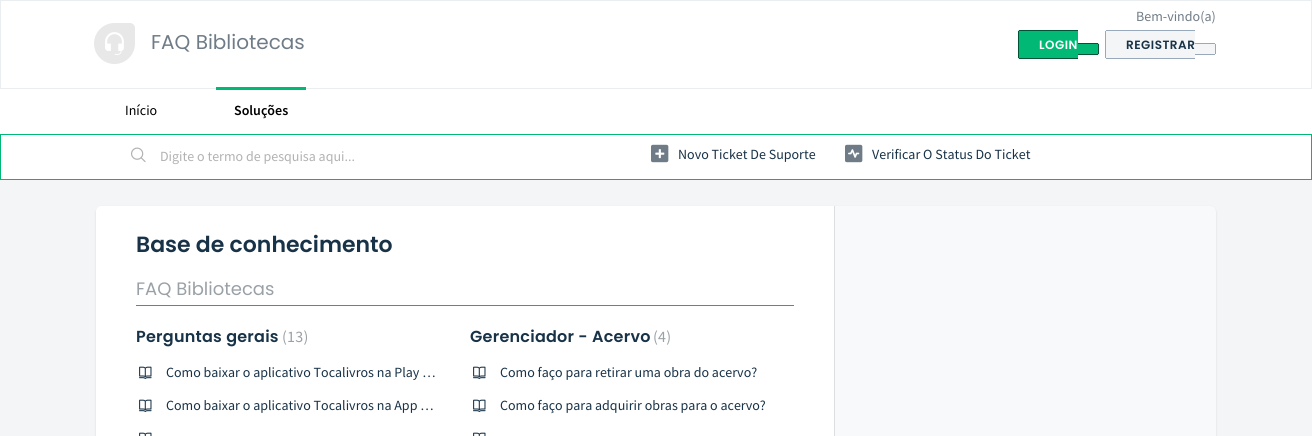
#include <cairo.h>
#include <math.h>
#include <stddef.h>

static cairo_t *ctx;

static void use_color(int r, int g, int b) {
    cairo_set_source_rgb(ctx, r / 255.0, g / 255.0, b / 255.0);
}

static void spaced_text(double x, double y, const char *s, double letter, double word) {
    cairo_move_to(ctx, x, y);
    while (*s) {
        char ch[5] = {0};
        int n = 0;
        do ch[n++] = *s++; while ((*s & 0xC0) == 0x80);
        cairo_show_text(ctx, ch);
        cairo_rel_move_to(ctx, letter + word * (*ch == ' '), 0);
    }
}

static void round_rect(double x, double y, double w, double h, double r) {
    cairo_new_sub_path(ctx);
    cairo_arc(ctx, x + w - r, y + h - r, r, 0, M_PI / 2);
    cairo_arc(ctx, x + r, y + h - r, r, M_PI / 2, M_PI);
    cairo_arc(ctx, x + r, y + r, r, M_PI, 1.5 * M_PI);
    cairo_arc(ctx, x + w - r, y + r, r, 1.5 * M_PI, 2 * M_PI);
    cairo_close_path(ctx);
}

static void shadow(double x, double y, double w, double h, double r, double blur, double alpha) {
    cairo_push_group_with_content(ctx, CAIRO_CONTENT_ALPHA);
    cairo_set_operator(ctx, CAIRO_OPERATOR_SOURCE);
    for (int i = 15; i >= -15 && fmin(w, h) + blur * i / 3 > 0; i -= 2) {
        double e = blur * i / 6;
        cairo_set_source_rgba(ctx, 0, 0, 0, alpha * erfc((i - 1) / 8.5) / 2);
        round_rect(x - e, y - e, w + 2 * e, h + 2 * e, fmax(0, fmin(r + e + blur * .6, fmin(w, h) / 2 + e)));
        cairo_fill(ctx);
    }
    cairo_pattern_t *soft = cairo_pop_group(ctx);
    cairo_mask(ctx, soft);
    cairo_pattern_destroy(soft);
}

static void picture(const char *path, double x, double y, double w, double h) {
    cairo_surface_t *image = cairo_image_surface_create_from_png(path);
    cairo_save(ctx);
    cairo_set_source_surface(ctx, image, x, y);
    cairo_rectangle(ctx, x, y, w, h);
    cairo_fill(ctx);
    cairo_restore(ctx);
    cairo_surface_destroy(image);
}

int main(void) {
    cairo_surface_t *surface = cairo_image_surface_create(CAIRO_FORMAT_RGB24, 1312, 436);
    ctx = cairo_create(surface);
    cairo_font_options_t *options = cairo_font_options_create();
    cairo_font_options_set_hint_metrics(options, CAIRO_HINT_METRICS_OFF);
    cairo_font_options_set_hint_style(options, CAIRO_HINT_STYLE_NONE);
    cairo_set_font_options(ctx, options);
    cairo_set_miter_limit(ctx, 4);
    use_color(243, 245, 247);
    cairo_paint(ctx);
    use_color(255, 255, 255);
    cairo_rectangle(ctx, 0.5, 0.5, 1311, 88);
    cairo_fill_preserve(ctx);
    use_color(235, 238, 240);
    cairo_set_line_width(ctx, 1);
    cairo_stroke(ctx);
    picture("img1.png", 94, 23, 41, 41);
    cairo_select_font_face(ctx, "Poppins", CAIRO_FONT_SLANT_NORMAL, CAIRO_FONT_WEIGHT_NORMAL);
    cairo_set_font_size(ctx, 20);
    use_color(111, 124, 135);
    cairo_move_to(ctx, 151, 49);
    cairo_show_text(ctx, "FAQ Bibliotecas");
    cairo_select_font_face(ctx, "Source Sans Pro", CAIRO_FONT_SLANT_NORMAL, CAIRO_FONT_WEIGHT_NORMAL);
    cairo_set_font_size(ctx, 14);
    cairo_move_to(ctx, 1136, 21);
    cairo_show_text(ctx, "Bem-vindo(a)");
    use_color(2, 184, 117);
    cairo_new_path(ctx);
    cairo_move_to(ctx, 1020, 30);
    cairo_line_to(ctx, 1078, 30);
    cairo_line_to(ctx, 1078, 59);
    cairo_line_to(ctx, 1020, 59);
    cairo_curve_to(ctx, 1019, 59, 1018, 58, 1018, 57);
    cairo_line_to(ctx, 1018, 32);
    cairo_curve_to(ctx, 1018, 31, 1019, 30, 1020, 30);
    cairo_close_path(ctx);
    cairo_fill(ctx);
    cairo_select_font_face(ctx, "Poppins SemiBold", CAIRO_FONT_SLANT_NORMAL, CAIRO_FONT_WEIGHT_NORMAL);
    cairo_set_font_size(ctx, 12);
    use_color(255, 255, 255);
    spaced_text(1039, 49, "LOGIN", 0.5, 0);
    use_color(1, 83, 53);
    cairo_rectangle(ctx, 1019, 30, 59, 1);
    cairo_fill(ctx);
    cairo_rectangle(ctx, 1019, 58, 59, 1);
    cairo_fill(ctx);
    cairo_rectangle(ctx, 1018, 31, 1, 27);
    cairo_fill(ctx);
    use_color(2, 184, 117);
    cairo_new_path(ctx);
    cairo_move_to(ctx, 1078, 43);
    cairo_line_to(ctx, 1097, 43);
    cairo_curve_to(ctx, 1098, 43, 1099, 44, 1099, 45);
    cairo_line_to(ctx, 1099, 53);
    cairo_curve_to(ctx, 1099, 54, 1098, 55, 1097, 55);
    cairo_line_to(ctx, 1078, 55);
    cairo_close_path(ctx);
    cairo_fill(ctx);
    use_color(1, 83, 53);
    cairo_rectangle(ctx, 1078, 43, 20, 1);
    cairo_fill(ctx);
    cairo_rectangle(ctx, 1098, 44, 1, 10);
    cairo_fill(ctx);
    cairo_rectangle(ctx, 1078, 54, 20, 1);
    cairo_fill(ctx);
    use_color(243, 245, 247);
    cairo_new_path(ctx);
    cairo_move_to(ctx, 1107, 30);
    cairo_line_to(ctx, 1195, 30);
    cairo_line_to(ctx, 1195, 59);
    cairo_line_to(ctx, 1107, 59);
    cairo_curve_to(ctx, 1106, 59, 1105, 58, 1105, 57);
    cairo_line_to(ctx, 1105, 32);
    cairo_curve_to(ctx, 1105, 31, 1106, 30, 1107, 30);
    cairo_close_path(ctx);
    cairo_fill(ctx);
    use_color(24, 50, 71);
    spaced_text(1126, 49, "REGISTRAR", 0.5, 0);
    use_color(151, 169, 186);
    cairo_rectangle(ctx, 1106, 30, 89, 1);
    cairo_fill(ctx);
    cairo_rectangle(ctx, 1106, 58, 89, 1);
    cairo_fill(ctx);
    cairo_rectangle(ctx, 1105, 31, 1, 27);
    cairo_fill(ctx);
    use_color(243, 245, 247);
    cairo_new_path(ctx);
    cairo_move_to(ctx, 1195, 43);
    cairo_line_to(ctx, 1214, 43);
    cairo_curve_to(ctx, 1215, 43, 1216, 44, 1216, 45);
    cairo_line_to(ctx, 1216, 53);
    cairo_curve_to(ctx, 1216, 54, 1215, 55, 1214, 55);
    cairo_line_to(ctx, 1195, 55);
    cairo_close_path(ctx);
    cairo_fill(ctx);
    use_color(151, 169, 186);
    cairo_rectangle(ctx, 1195, 43, 20, 1);
    cairo_fill(ctx);
    cairo_rectangle(ctx, 1215, 44, 1, 10);
    cairo_fill(ctx);
    cairo_rectangle(ctx, 1195, 54, 20, 1);
    cairo_fill(ctx);
    use_color(255, 255, 255);
    cairo_rectangle(ctx, 0, 89, 1312, 45);
    cairo_fill(ctx);
    cairo_select_font_face(ctx, "Source Sans Pro", CAIRO_FONT_SLANT_NORMAL, CAIRO_FONT_WEIGHT_NORMAL);
    cairo_set_font_size(ctx, 14);
    use_color(0, 0, 0);
    cairo_move_to(ctx, 125, 115);
    cairo_show_text(ctx, "Início");
    use_color(2, 184, 117);
    cairo_rectangle(ctx, 216, 87, 90, 3);
    cairo_fill(ctx);
    cairo_select_font_face(ctx, "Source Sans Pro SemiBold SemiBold", CAIRO_FONT_SLANT_NORMAL, CAIRO_FONT_WEIGHT_NORMAL);
    use_color(0, 0, 0);
    cairo_move_to(ctx, 234, 115);
    cairo_show_text(ctx, "Soluções");
    use_color(255, 255, 255);
    cairo_rectangle(ctx, 0.5, 134.5, 1311, 45);
    cairo_fill_preserve(ctx);
    use_color(2, 184, 117);
    cairo_stroke(ctx);
    picture("img2.png", 131, 147, 15, 15);
    cairo_select_font_face(ctx, "Source Sans Pro", CAIRO_FONT_SLANT_NORMAL, CAIRO_FONT_WEIGHT_NORMAL);
    use_color(178, 178, 178);
    cairo_move_to(ctx, 160, 161);
    cairo_show_text(ctx, "Digite o termo de pesquisa aqui...");
    picture("img3.png", 651, 144, 18, 19);
    use_color(24, 50, 71);
    cairo_move_to(ctx, 678, 159);
    cairo_show_text(ctx, "Novo Ticket De Suporte");
    picture("img4.png", 845, 144, 18, 19);
    cairo_move_to(ctx, 872, 159);
    cairo_show_text(ctx, "Verificar O Status Do Ticket");
    use_color(63, 63, 68);
    shadow(96, 207, 1120, 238, 6, 1, 0.15);
    use_color(248, 249, 250);
    round_rect(96, 206, 1120, 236, 6);
    cairo_fill(ctx);
    use_color(255, 255, 255);
    cairo_new_path(ctx);
    cairo_move_to(ctx, 102, 206);
    cairo_line_to(ctx, 835, 206);
    cairo_line_to(ctx, 835, 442);
    cairo_line_to(ctx, 102, 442);
    cairo_curve_to(ctx, 98.5, 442, 96, 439.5, 96, 436);
    cairo_line_to(ctx, 96, 212);
    cairo_curve_to(ctx, 96, 208.5, 98.5, 206, 102, 206);
    cairo_close_path(ctx);
    cairo_fill(ctx);
    use_color(218, 223, 227);
    cairo_rectangle(ctx, 834, 206, 1, 230);
    cairo_fill(ctx);
    cairo_select_font_face(ctx, "Poppins SemiBold", CAIRO_FONT_SLANT_NORMAL, CAIRO_FONT_WEIGHT_NORMAL);
    cairo_set_font_size(ctx, 22);
    use_color(24, 50, 71);
    cairo_move_to(ctx, 136, 252);
    cairo_show_text(ctx, "Base de conhecimento");
    use_color(2, 184, 117);
    cairo_rectangle(ctx, 136, 305, 658, 1);
    cairo_fill(ctx);
    cairo_select_font_face(ctx, "Poppins", CAIRO_FONT_SLANT_NORMAL, CAIRO_FONT_WEIGHT_NORMAL);
    cairo_set_font_size(ctx, 18);
    use_color(154, 161, 166);
    cairo_move_to(ctx, 136, 295);
    cairo_show_text(ctx, "FAQ Bibliotecas");
    cairo_select_font_face(ctx, "Poppins SemiBold", CAIRO_FONT_SLANT_NORMAL, CAIRO_FONT_WEIGHT_NORMAL);
    cairo_set_font_size(ctx, 16);
    use_color(24, 50, 71);
    spaced_text(136, 342, "Perguntas gerais", 0.25, 0);
    cairo_select_font_face(ctx, "Source Sans Pro", CAIRO_FONT_SLANT_NORMAL, CAIRO_FONT_WEIGHT_NORMAL);
    use_color(154, 161, 166);
    spaced_text(282, 342, "(13)", 0.25, 0);
    picture("img5.png", 139, 366, 13, 13);
    cairo_set_font_size(ctx, 14);
    use_color(24, 50, 71);
    cairo_move_to(ctx, 166, 377);
    cairo_show_text(ctx, "Como baixar o aplicativo Tocalivros na Play …");
    picture("img5.png", 139, 399, 13, 13);
    cairo_move_to(ctx, 166, 410);
    cairo_show_text(ctx, "Como baixar o aplicativo Tocalivros na App …");
    picture("img6.png", 139, 432, 13, 4);
    cairo_select_font_face(ctx, "Poppins SemiBold", CAIRO_FONT_SLANT_NORMAL, CAIRO_FONT_WEIGHT_NORMAL);
    cairo_set_font_size(ctx, 16);
    spaced_text(470, 342, "Gerenciador - Acervo", 0.25, 0);
    cairo_select_font_face(ctx, "Source Sans Pro", CAIRO_FONT_SLANT_NORMAL, CAIRO_FONT_WEIGHT_NORMAL);
    use_color(154, 161, 166);
    spaced_text(653, 342, "(4)", 0.25, 0);
    picture("img5.png", 473, 366, 13, 13);
    cairo_set_font_size(ctx, 14);
    use_color(24, 50, 71);
    cairo_move_to(ctx, 500, 377);
    cairo_show_text(ctx, "Como faço para retirar uma obra do acervo?");
    picture("img5.png", 473, 399, 13, 13);
    cairo_move_to(ctx, 500, 410);
    cairo_show_text(ctx, "Como faço para adquirir obras para o acervo?");
    picture("img6.png", 473, 432, 13, 4);
    cairo_surface_write_to_png(surface, "result.png");
    cairo_font_options_destroy(options);
    cairo_destroy(ctx);
    cairo_surface_destroy(surface);
    return 0;
}
